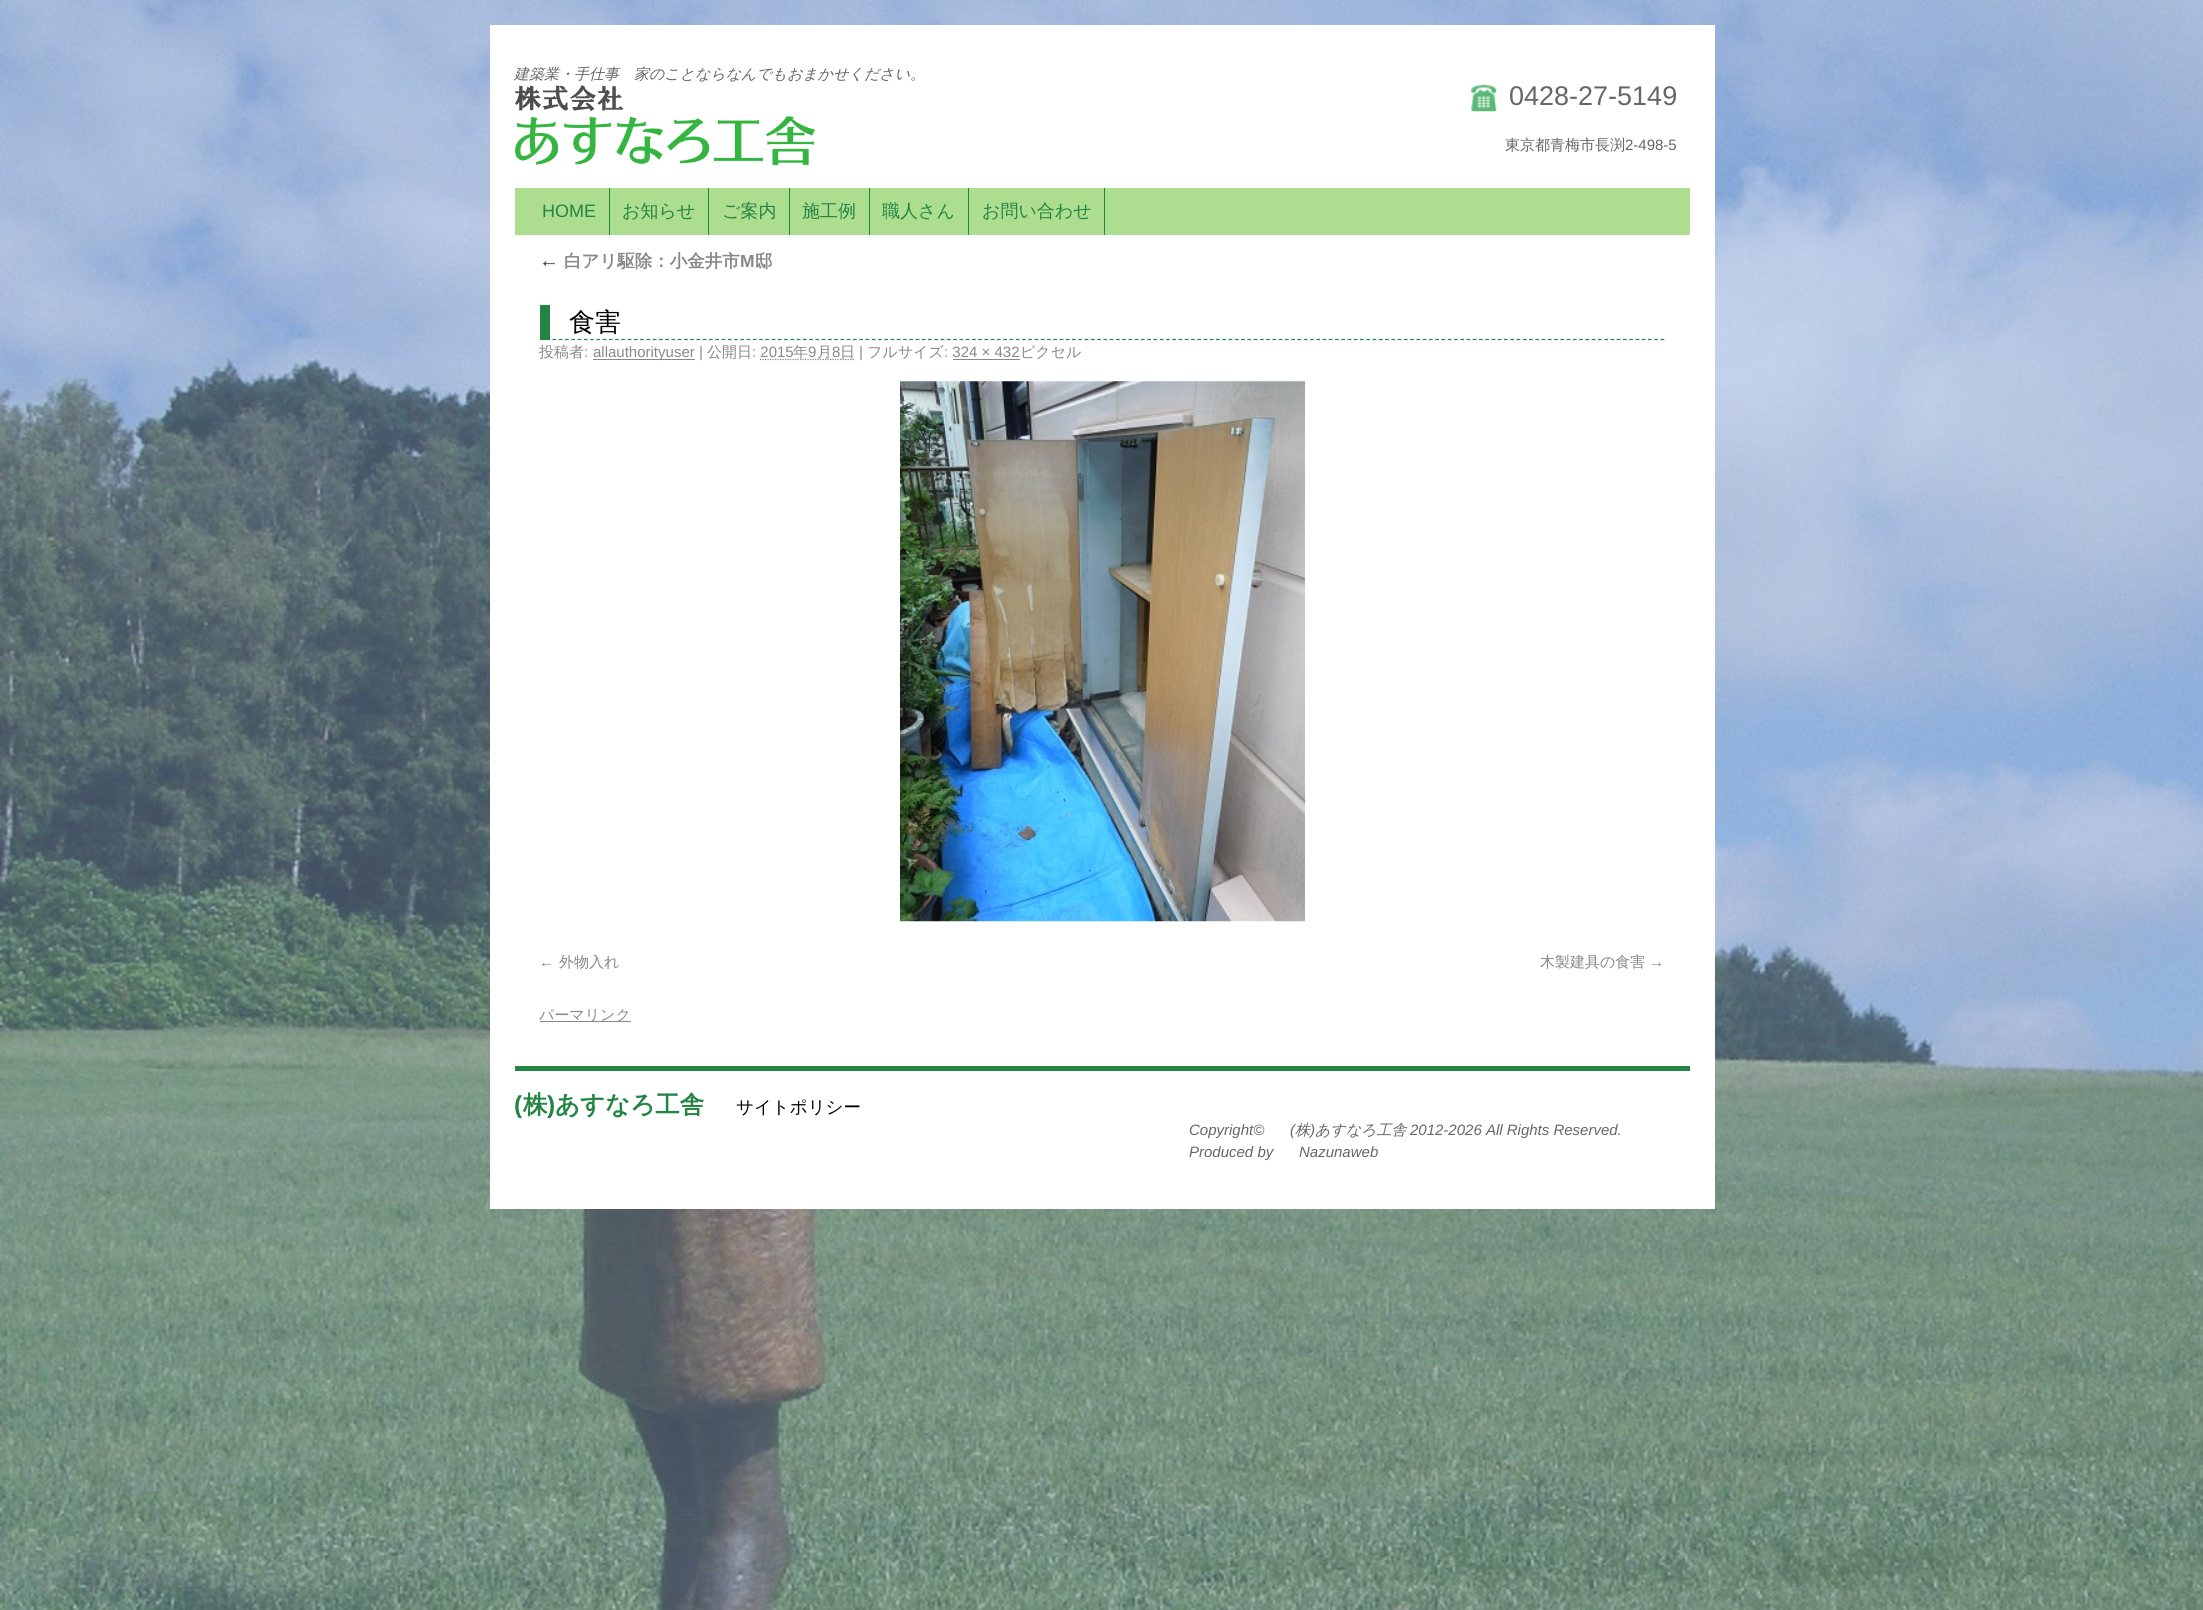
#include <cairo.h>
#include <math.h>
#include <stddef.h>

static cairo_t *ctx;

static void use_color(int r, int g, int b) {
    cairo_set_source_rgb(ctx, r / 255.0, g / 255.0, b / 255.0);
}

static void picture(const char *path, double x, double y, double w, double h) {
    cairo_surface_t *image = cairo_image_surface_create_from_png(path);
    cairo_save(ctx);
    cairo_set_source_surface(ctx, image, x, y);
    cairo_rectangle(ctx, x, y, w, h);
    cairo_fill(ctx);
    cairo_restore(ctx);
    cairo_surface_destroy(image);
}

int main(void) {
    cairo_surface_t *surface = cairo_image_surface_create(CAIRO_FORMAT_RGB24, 2203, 1610);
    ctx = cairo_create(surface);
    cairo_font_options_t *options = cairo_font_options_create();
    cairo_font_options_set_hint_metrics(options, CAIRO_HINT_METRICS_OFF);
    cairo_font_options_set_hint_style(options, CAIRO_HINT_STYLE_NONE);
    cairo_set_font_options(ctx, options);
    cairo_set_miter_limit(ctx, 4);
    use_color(163, 191, 240);
    cairo_paint(ctx);
    picture("img1.png", 0, 0, 2203, 1610);
    use_color(255, 255, 255);
    cairo_rectangle(ctx, 490, 25, 1225, 1184);
    cairo_fill(ctx);
    cairo_select_font_face(ctx, "WenQuanYi Zen Hei Medium", CAIRO_FONT_SLANT_ITALIC, CAIRO_FONT_WEIGHT_NORMAL);
    cairo_set_font_size(ctx, 15);
    use_color(102, 102, 102);
    cairo_move_to(ctx, 514, 79);
    cairo_show_text(ctx, "建築業・手仕事　家のことならなんでもおまかせください。");
    picture("img2.png", 515, 85, 300, 80);
    picture("img3.png", 1471, 85, 26, 27);
    cairo_select_font_face(ctx, "Liberation Sans", CAIRO_FONT_SLANT_NORMAL, CAIRO_FONT_WEIGHT_NORMAL);
    cairo_set_font_size(ctx, 27);
    cairo_move_to(ctx, 1509, 105);
    cairo_show_text(ctx, "0428-27-5149");
    cairo_select_font_face(ctx, "WenQuanYi Zen Hei Medium", CAIRO_FONT_SLANT_NORMAL, CAIRO_FONT_WEIGHT_NORMAL);
    cairo_set_font_size(ctx, 15);
    cairo_move_to(ctx, 1505, 150);
    cairo_show_text(ctx, "東京都青梅市長渕");
    cairo_select_font_face(ctx, "Liberation Sans", CAIRO_FONT_SLANT_NORMAL, CAIRO_FONT_WEIGHT_NORMAL);
    cairo_move_to(ctx, 1625, 150);
    cairo_show_text(ctx, "2-498-5");
    use_color(173, 221, 142);
    cairo_rectangle(ctx, 515, 188, 1175, 47);
    cairo_fill(ctx);
    use_color(35, 132, 67);
    cairo_rectangle(ctx, 609, 188, 1, 47);
    cairo_fill(ctx);
    cairo_set_font_size(ctx, 18);
    cairo_move_to(ctx, 542, 217);
    cairo_show_text(ctx, "HOME");
    cairo_rectangle(ctx, 708, 188, 1, 47);
    cairo_fill(ctx);
    cairo_select_font_face(ctx, "WenQuanYi Zen Hei Medium", CAIRO_FONT_SLANT_NORMAL, CAIRO_FONT_WEIGHT_NORMAL);
    cairo_move_to(ctx, 622, 217);
    cairo_show_text(ctx, "お知らせ");
    cairo_rectangle(ctx, 789, 188, 1, 47);
    cairo_fill(ctx);
    cairo_move_to(ctx, 722, 217);
    cairo_show_text(ctx, "ご案内");
    cairo_rectangle(ctx, 869, 188, 1, 47);
    cairo_fill(ctx);
    cairo_move_to(ctx, 802, 217);
    cairo_show_text(ctx, "施工例");
    cairo_rectangle(ctx, 968, 188, 1, 47);
    cairo_fill(ctx);
    cairo_move_to(ctx, 882, 217);
    cairo_show_text(ctx, "職人さん");
    cairo_rectangle(ctx, 1104, 188, 1, 47);
    cairo_fill(ctx);
    cairo_move_to(ctx, 982, 217);
    cairo_show_text(ctx, "お問い合わせ");
    cairo_select_font_face(ctx, "Liberation Sans", CAIRO_FONT_SLANT_ITALIC, CAIRO_FONT_WEIGHT_NORMAL);
    cairo_set_font_size(ctx, 20);
    use_color(51, 51, 51);
    cairo_move_to(ctx, 539, 267);
    cairo_show_text(ctx, "←");
    cairo_select_font_face(ctx, "WenQuanYi Zen Hei", CAIRO_FONT_SLANT_NORMAL, CAIRO_FONT_WEIGHT_BOLD);
    cairo_set_font_size(ctx, 17.5);
    use_color(136, 136, 136);
    cairo_move_to(ctx, 564, 267);
    cairo_show_text(ctx, "白アリ駆除：小金井市");
    cairo_select_font_face(ctx, "Liberation Sans", CAIRO_FONT_SLANT_NORMAL, CAIRO_FONT_WEIGHT_BOLD);
    cairo_move_to(ctx, 740, 267);
    cairo_show_text(ctx, "M");
    cairo_select_font_face(ctx, "WenQuanYi Zen Hei", CAIRO_FONT_SLANT_NORMAL, CAIRO_FONT_WEIGHT_BOLD);
    cairo_move_to(ctx, 755, 267);
    cairo_show_text(ctx, "邸");
    cairo_new_path(ctx);
    cairo_move_to(ctx, 540, 339.5);
    cairo_line_to(ctx, 1665, 339.5);
    use_color(35, 132, 67);
    cairo_set_line_width(ctx, 1.2);
    cairo_set_dash(ctx, (double[]){3.75, 2.51}, 2, 0);
    cairo_stroke(ctx);
    cairo_rectangle(ctx, 540, 305, 10, 35);
    cairo_fill(ctx);
    cairo_select_font_face(ctx, "WenQuanYi Zen Hei Medium", CAIRO_FONT_SLANT_NORMAL, CAIRO_FONT_WEIGHT_NORMAL);
    cairo_set_font_size(ctx, 26);
    use_color(0, 0, 0);
    cairo_move_to(ctx, 569, 331);
    cairo_show_text(ctx, "食害");
    cairo_set_font_size(ctx, 15);
    use_color(136, 136, 136);
    cairo_move_to(ctx, 539, 357);
    cairo_show_text(ctx, "投稿者");
    cairo_select_font_face(ctx, "Liberation Sans", CAIRO_FONT_SLANT_NORMAL, CAIRO_FONT_WEIGHT_NORMAL);
    cairo_move_to(ctx, 584, 357);
    cairo_show_text(ctx, ":");
    cairo_rectangle(ctx, 593, 359, 102, 1);
    cairo_fill(ctx);
    cairo_move_to(ctx, 593, 357);
    cairo_show_text(ctx, "allauthorityuser |");
    cairo_select_font_face(ctx, "WenQuanYi Zen Hei Medium", CAIRO_FONT_SLANT_NORMAL, CAIRO_FONT_WEIGHT_NORMAL);
    cairo_move_to(ctx, 707, 357);
    cairo_show_text(ctx, "公開日");
    cairo_select_font_face(ctx, "Liberation Sans", CAIRO_FONT_SLANT_NORMAL, CAIRO_FONT_WEIGHT_NORMAL);
    cairo_move_to(ctx, 752, 357);
    cairo_show_text(ctx, ": 2015");
    cairo_new_path(ctx);
    cairo_move_to(ctx, 760, 359.5);
    cairo_line_to(ctx, 855, 359.5);
    cairo_set_dash(ctx, (double[]){1.25, 1.25}, 2, 0);
    cairo_stroke(ctx);
    cairo_select_font_face(ctx, "WenQuanYi Zen Hei Medium", CAIRO_FONT_SLANT_NORMAL, CAIRO_FONT_WEIGHT_NORMAL);
    cairo_move_to(ctx, 793, 357);
    cairo_show_text(ctx, "年");
    cairo_select_font_face(ctx, "Liberation Sans", CAIRO_FONT_SLANT_NORMAL, CAIRO_FONT_WEIGHT_NORMAL);
    cairo_move_to(ctx, 808, 357);
    cairo_show_text(ctx, "9");
    cairo_select_font_face(ctx, "WenQuanYi Zen Hei Medium", CAIRO_FONT_SLANT_NORMAL, CAIRO_FONT_WEIGHT_NORMAL);
    cairo_move_to(ctx, 817, 357);
    cairo_show_text(ctx, "月");
    cairo_select_font_face(ctx, "Liberation Sans", CAIRO_FONT_SLANT_NORMAL, CAIRO_FONT_WEIGHT_NORMAL);
    cairo_move_to(ctx, 832, 357);
    cairo_show_text(ctx, "8");
    cairo_select_font_face(ctx, "WenQuanYi Zen Hei Medium", CAIRO_FONT_SLANT_NORMAL, CAIRO_FONT_WEIGHT_NORMAL);
    cairo_move_to(ctx, 840, 357);
    cairo_show_text(ctx, "日");
    cairo_select_font_face(ctx, "Liberation Sans", CAIRO_FONT_SLANT_NORMAL, CAIRO_FONT_WEIGHT_NORMAL);
    cairo_move_to(ctx, 859, 357);
    cairo_show_text(ctx, "|");
    cairo_select_font_face(ctx, "WenQuanYi Zen Hei Medium", CAIRO_FONT_SLANT_NORMAL, CAIRO_FONT_WEIGHT_NORMAL);
    cairo_move_to(ctx, 867, 357);
    cairo_show_text(ctx, "フルサイズ");
    cairo_select_font_face(ctx, "Liberation Sans", CAIRO_FONT_SLANT_NORMAL, CAIRO_FONT_WEIGHT_NORMAL);
    cairo_move_to(ctx, 944, 357);
    cairo_show_text(ctx, ": 324 × 432");
    cairo_select_font_face(ctx, "WenQuanYi Zen Hei Medium", CAIRO_FONT_SLANT_NORMAL, CAIRO_FONT_WEIGHT_NORMAL);
    cairo_move_to(ctx, 1020, 357);
    cairo_show_text(ctx, "ピクセル");
    cairo_rectangle(ctx, 953, 359, 67, 1);
    cairo_fill(ctx);
    picture("img4.png", 900, 381, 405, 541);
    cairo_select_font_face(ctx, "Liberation Sans", CAIRO_FONT_SLANT_NORMAL, CAIRO_FONT_WEIGHT_NORMAL);
    cairo_move_to(ctx, 539, 967);
    cairo_show_text(ctx, "←");
    cairo_select_font_face(ctx, "WenQuanYi Zen Hei Medium", CAIRO_FONT_SLANT_NORMAL, CAIRO_FONT_WEIGHT_NORMAL);
    cairo_move_to(ctx, 559, 967);
    cairo_show_text(ctx, "外物入れ");
    cairo_move_to(ctx, 1540, 967);
    cairo_show_text(ctx, "木製建具の食害");
    cairo_select_font_face(ctx, "Liberation Sans", CAIRO_FONT_SLANT_NORMAL, CAIRO_FONT_WEIGHT_NORMAL);
    cairo_move_to(ctx, 1649, 967);
    cairo_show_text(ctx, "→");
    cairo_rectangle(ctx, 540, 1021, 91, 1);
    cairo_fill(ctx);
    cairo_select_font_face(ctx, "WenQuanYi Zen Hei Medium", CAIRO_FONT_SLANT_NORMAL, CAIRO_FONT_WEIGHT_NORMAL);
    cairo_move_to(ctx, 539, 1020);
    cairo_show_text(ctx, "パーマリンク");
    use_color(35, 132, 67);
    cairo_rectangle(ctx, 515, 1066, 1175, 5);
    cairo_fill(ctx);
    cairo_select_font_face(ctx, "Liberation Sans", CAIRO_FONT_SLANT_NORMAL, CAIRO_FONT_WEIGHT_BOLD);
    cairo_set_font_size(ctx, 24.5);
    cairo_move_to(ctx, 514, 1113);
    cairo_show_text(ctx, "(");
    cairo_select_font_face(ctx, "WenQuanYi Zen Hei", CAIRO_FONT_SLANT_NORMAL, CAIRO_FONT_WEIGHT_BOLD);
    cairo_move_to(ctx, 523, 1113);
    cairo_show_text(ctx, "株");
    cairo_select_font_face(ctx, "Liberation Sans", CAIRO_FONT_SLANT_NORMAL, CAIRO_FONT_WEIGHT_BOLD);
    cairo_move_to(ctx, 547, 1113);
    cairo_show_text(ctx, ")");
    cairo_select_font_face(ctx, "WenQuanYi Zen Hei", CAIRO_FONT_SLANT_NORMAL, CAIRO_FONT_WEIGHT_BOLD);
    cairo_move_to(ctx, 555, 1113);
    cairo_show_text(ctx, "あすなろ工舎");
    cairo_select_font_face(ctx, "WenQuanYi Zen Hei Medium", CAIRO_FONT_SLANT_NORMAL, CAIRO_FONT_WEIGHT_NORMAL);
    cairo_set_font_size(ctx, 17.5);
    use_color(0, 0, 0);
    cairo_move_to(ctx, 736, 1113);
    cairo_show_text(ctx, "サイトポリシー");
    cairo_select_font_face(ctx, "Liberation Sans", CAIRO_FONT_SLANT_ITALIC, CAIRO_FONT_WEIGHT_NORMAL);
    cairo_set_font_size(ctx, 15);
    use_color(102, 102, 102);
    cairo_move_to(ctx, 1189, 1135);
    cairo_show_text(ctx, "Copyright©");
    cairo_move_to(ctx, 1290, 1135);
    cairo_show_text(ctx, "(");
    cairo_select_font_face(ctx, "WenQuanYi Zen Hei Medium", CAIRO_FONT_SLANT_ITALIC, CAIRO_FONT_WEIGHT_NORMAL);
    cairo_move_to(ctx, 1295, 1135);
    cairo_show_text(ctx, "株");
    cairo_move_to(ctx, 1315, 1135);
    cairo_show_text(ctx, "あすなろ工舎");
    cairo_select_font_face(ctx, "Liberation Sans", CAIRO_FONT_SLANT_ITALIC, CAIRO_FONT_WEIGHT_NORMAL);
    cairo_move_to(ctx, 1310, 1135);
    cairo_show_text(ctx, ")");
    cairo_move_to(ctx, 1410, 1135);
    cairo_show_text(ctx, "2012-2026 All Rights Reserved.");
    cairo_move_to(ctx, 1189, 1157);
    cairo_show_text(ctx, "Produced by");
    cairo_move_to(ctx, 1299, 1157);
    cairo_show_text(ctx, "Nazunaweb");
    cairo_surface_write_to_png(surface, "result.png");
    cairo_font_options_destroy(options);
    cairo_destroy(ctx);
    cairo_surface_destroy(surface);
    return 0;
}
